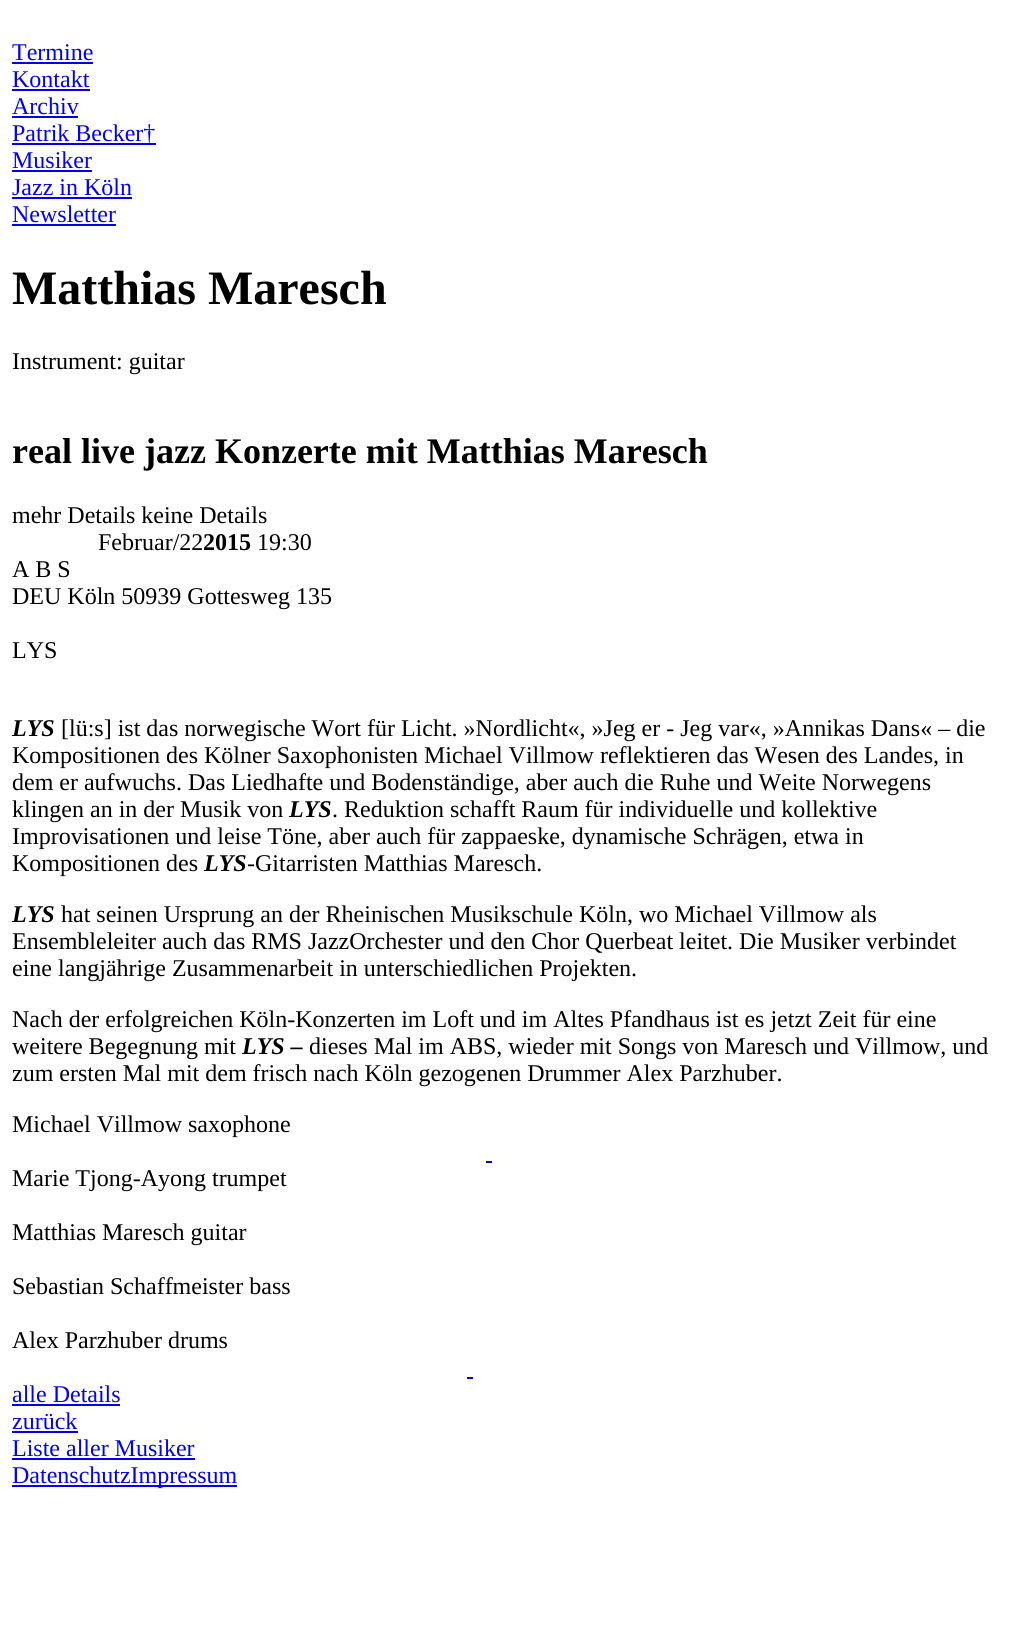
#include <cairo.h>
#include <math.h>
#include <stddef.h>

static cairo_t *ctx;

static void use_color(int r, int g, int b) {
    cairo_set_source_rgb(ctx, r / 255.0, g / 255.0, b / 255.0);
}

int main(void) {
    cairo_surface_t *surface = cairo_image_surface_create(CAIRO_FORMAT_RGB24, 1009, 1647);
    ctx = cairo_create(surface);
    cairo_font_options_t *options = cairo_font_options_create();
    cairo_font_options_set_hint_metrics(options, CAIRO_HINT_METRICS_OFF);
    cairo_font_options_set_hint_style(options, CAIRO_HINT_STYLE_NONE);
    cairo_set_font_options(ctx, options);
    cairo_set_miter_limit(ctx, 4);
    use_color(255, 255, 255);
    cairo_paint(ctx);
    cairo_select_font_face(ctx, "Liberation Serif", CAIRO_FONT_SLANT_NORMAL, CAIRO_FONT_WEIGHT_NORMAL);
    cairo_set_font_size(ctx, 24);
    use_color(0, 0, 238);
    cairo_move_to(ctx, 12, 60);
    cairo_show_text(ctx, "Termine");
    cairo_rectangle(ctx, 12, 62, 81, 2);
    cairo_fill(ctx);
    cairo_move_to(ctx, 12, 87);
    cairo_show_text(ctx, "Kontakt");
    cairo_rectangle(ctx, 12, 89, 78, 2);
    cairo_fill(ctx);
    cairo_move_to(ctx, 12, 114);
    cairo_show_text(ctx, "Archiv");
    cairo_rectangle(ctx, 12, 116, 66, 2);
    cairo_fill(ctx);
    cairo_rectangle(ctx, 12, 143, 144, 2);
    cairo_fill(ctx);
    cairo_move_to(ctx, 12, 141);
    cairo_show_text(ctx, "Patrik Becker†");
    cairo_move_to(ctx, 12, 168);
    cairo_show_text(ctx, "Musiker");
    cairo_rectangle(ctx, 12, 170, 80, 2);
    cairo_fill(ctx);
    cairo_move_to(ctx, 12, 195);
    cairo_show_text(ctx, "Jazz in Köln");
    cairo_rectangle(ctx, 12, 197, 120, 2);
    cairo_fill(ctx);
    cairo_move_to(ctx, 12, 222);
    cairo_show_text(ctx, "Newsletter");
    cairo_rectangle(ctx, 12, 224, 104, 2);
    cairo_fill(ctx);
    cairo_select_font_face(ctx, "Liberation Serif", CAIRO_FONT_SLANT_NORMAL, CAIRO_FONT_WEIGHT_BOLD);
    cairo_set_font_size(ctx, 48);
    use_color(0, 0, 0);
    cairo_move_to(ctx, 12, 304);
    cairo_show_text(ctx, "Matthias Maresch");
    cairo_select_font_face(ctx, "Liberation Serif", CAIRO_FONT_SLANT_NORMAL, CAIRO_FONT_WEIGHT_NORMAL);
    cairo_set_font_size(ctx, 24);
    cairo_move_to(ctx, 12, 369);
    cairo_show_text(ctx, "Instrument: guitar");
    cairo_select_font_face(ctx, "Liberation Serif", CAIRO_FONT_SLANT_NORMAL, CAIRO_FONT_WEIGHT_BOLD);
    cairo_set_font_size(ctx, 36);
    cairo_move_to(ctx, 12, 463);
    cairo_show_text(ctx, "real live jazz Konzerte mit Matthias Maresch");
    cairo_select_font_face(ctx, "Liberation Serif", CAIRO_FONT_SLANT_NORMAL, CAIRO_FONT_WEIGHT_NORMAL);
    cairo_set_font_size(ctx, 24);
    cairo_move_to(ctx, 12, 523);
    cairo_show_text(ctx, "mehr Details keine Details");
    cairo_move_to(ctx, 98, 550);
    cairo_show_text(ctx, "Februar/22");
    cairo_select_font_face(ctx, "Liberation Serif", CAIRO_FONT_SLANT_NORMAL, CAIRO_FONT_WEIGHT_BOLD);
    cairo_move_to(ctx, 203, 550);
    cairo_show_text(ctx, "2015");
    cairo_select_font_face(ctx, "Liberation Serif", CAIRO_FONT_SLANT_NORMAL, CAIRO_FONT_WEIGHT_NORMAL);
    cairo_move_to(ctx, 257, 550);
    cairo_show_text(ctx, "19:30");
    cairo_move_to(ctx, 12, 577);
    cairo_show_text(ctx, "A B S");
    cairo_move_to(ctx, 12, 604);
    cairo_show_text(ctx, "DEU Köln 50939 Gottesweg 135");
    cairo_move_to(ctx, 12, 658);
    cairo_show_text(ctx, "LYS");
    cairo_select_font_face(ctx, "Liberation Serif", CAIRO_FONT_SLANT_ITALIC, CAIRO_FONT_WEIGHT_BOLD);
    cairo_move_to(ctx, 12, 736);
    cairo_show_text(ctx, "LYS");
    cairo_select_font_face(ctx, "Liberation Serif", CAIRO_FONT_SLANT_NORMAL, CAIRO_FONT_WEIGHT_NORMAL);
    cairo_move_to(ctx, 61, 736);
    cairo_show_text(ctx, "[lü:s] ist das norwegische Wort für Licht. »Nordlicht«, »Jeg er - Jeg var«, »Annikas Dans« – die");
    cairo_move_to(ctx, 12, 763);
    cairo_show_text(ctx, "Kompositionen des Kölner Saxophonisten Michael Villmow reflektieren das Wesen des Landes, in");
    cairo_move_to(ctx, 12, 790);
    cairo_show_text(ctx, "dem er aufwuchs. Das Liedhafte und Bodenständige, aber auch die Ruhe und Weite Norwegens");
    cairo_move_to(ctx, 12, 817);
    cairo_show_text(ctx, "klingen an in der Musik von");
    cairo_select_font_face(ctx, "Liberation Serif", CAIRO_FONT_SLANT_ITALIC, CAIRO_FONT_WEIGHT_BOLD);
    cairo_move_to(ctx, 289, 817);
    cairo_show_text(ctx, "LYS");
    cairo_select_font_face(ctx, "Liberation Serif", CAIRO_FONT_SLANT_NORMAL, CAIRO_FONT_WEIGHT_NORMAL);
    cairo_move_to(ctx, 332, 817);
    cairo_show_text(ctx, ". Reduktion schafft Raum für individuelle und kollektive");
    cairo_move_to(ctx, 12, 844);
    cairo_show_text(ctx, "Improvisationen und leise Töne, aber auch für zappaeske, dynamische Schrägen, etwa in");
    cairo_move_to(ctx, 12, 871);
    cairo_show_text(ctx, "Kompositionen des");
    cairo_select_font_face(ctx, "Liberation Serif", CAIRO_FONT_SLANT_ITALIC, CAIRO_FONT_WEIGHT_BOLD);
    cairo_move_to(ctx, 204, 871);
    cairo_show_text(ctx, "LYS");
    cairo_select_font_face(ctx, "Liberation Serif", CAIRO_FONT_SLANT_NORMAL, CAIRO_FONT_WEIGHT_NORMAL);
    cairo_move_to(ctx, 247, 871);
    cairo_show_text(ctx, "-Gitarristen Matthias Maresch.");
    cairo_select_font_face(ctx, "Liberation Serif", CAIRO_FONT_SLANT_ITALIC, CAIRO_FONT_WEIGHT_BOLD);
    cairo_move_to(ctx, 12, 922);
    cairo_show_text(ctx, "LYS");
    cairo_select_font_face(ctx, "Liberation Serif", CAIRO_FONT_SLANT_NORMAL, CAIRO_FONT_WEIGHT_NORMAL);
    cairo_move_to(ctx, 61, 922);
    cairo_show_text(ctx, "hat seinen Ursprung an der Rheinischen Musikschule Köln, wo Michael Villmow als");
    cairo_move_to(ctx, 12, 949);
    cairo_show_text(ctx, "Ensembleleiter auch das RMS JazzOrchester und den Chor Querbeat leitet. Die Musiker verbindet");
    cairo_move_to(ctx, 12, 976);
    cairo_show_text(ctx, "eine langjährige Zusammenarbeit in unterschiedlichen Projekten.");
    cairo_move_to(ctx, 12, 1027);
    cairo_show_text(ctx, "Nach der erfolgreichen Köln-Konzerten im Loft und im Altes Pfandhaus ist es jetzt Zeit für eine");
    cairo_move_to(ctx, 12, 1054);
    cairo_show_text(ctx, "weitere Begegnung mit");
    cairo_select_font_face(ctx, "Liberation Serif", CAIRO_FONT_SLANT_ITALIC, CAIRO_FONT_WEIGHT_BOLD);
    cairo_move_to(ctx, 242, 1054);
    cairo_show_text(ctx, "LYS –");
    cairo_select_font_face(ctx, "Liberation Serif", CAIRO_FONT_SLANT_NORMAL, CAIRO_FONT_WEIGHT_NORMAL);
    cairo_move_to(ctx, 309, 1054);
    cairo_show_text(ctx, "dieses Mal im ABS, wieder mit Songs von Maresch und Villmow, und");
    cairo_move_to(ctx, 12, 1081);
    cairo_show_text(ctx, "zum ersten Mal mit dem frisch nach Köln gezogenen Drummer Alex Parzhuber.");
    cairo_move_to(ctx, 12, 1132);
    cairo_show_text(ctx, "Michael Villmow saxophone");
    use_color(0, 0, 238);
    cairo_rectangle(ctx, 486, 1161, 6, 2);
    cairo_fill(ctx);
    use_color(0, 0, 0);
    cairo_move_to(ctx, 12, 1186);
    cairo_show_text(ctx, "Marie Tjong-Ayong trumpet");
    cairo_move_to(ctx, 12, 1240);
    cairo_show_text(ctx, "Matthias Maresch guitar");
    cairo_move_to(ctx, 12, 1294);
    cairo_show_text(ctx, "Sebastian Schaffmeister bass");
    cairo_move_to(ctx, 12, 1348);
    cairo_show_text(ctx, "Alex Parzhuber drums");
    use_color(0, 0, 238);
    cairo_rectangle(ctx, 467, 1377, 6, 2);
    cairo_fill(ctx);
    cairo_move_to(ctx, 12, 1402);
    cairo_show_text(ctx, "alle Details");
    cairo_rectangle(ctx, 12, 1404, 108, 2);
    cairo_fill(ctx);
    cairo_move_to(ctx, 12, 1429);
    cairo_show_text(ctx, "zurück");
    cairo_rectangle(ctx, 12, 1431, 66, 2);
    cairo_fill(ctx);
    cairo_move_to(ctx, 12, 1456);
    cairo_show_text(ctx, "Liste aller Musiker");
    cairo_rectangle(ctx, 12, 1458, 183, 2);
    cairo_fill(ctx);
    cairo_rectangle(ctx, 12, 1485, 225, 2);
    cairo_fill(ctx);
    cairo_move_to(ctx, 12, 1483);
    cairo_show_text(ctx, "DatenschutzImpressum");
    cairo_surface_write_to_png(surface, "result.png");
    cairo_font_options_destroy(options);
    cairo_destroy(ctx);
    cairo_surface_destroy(surface);
    return 0;
}
